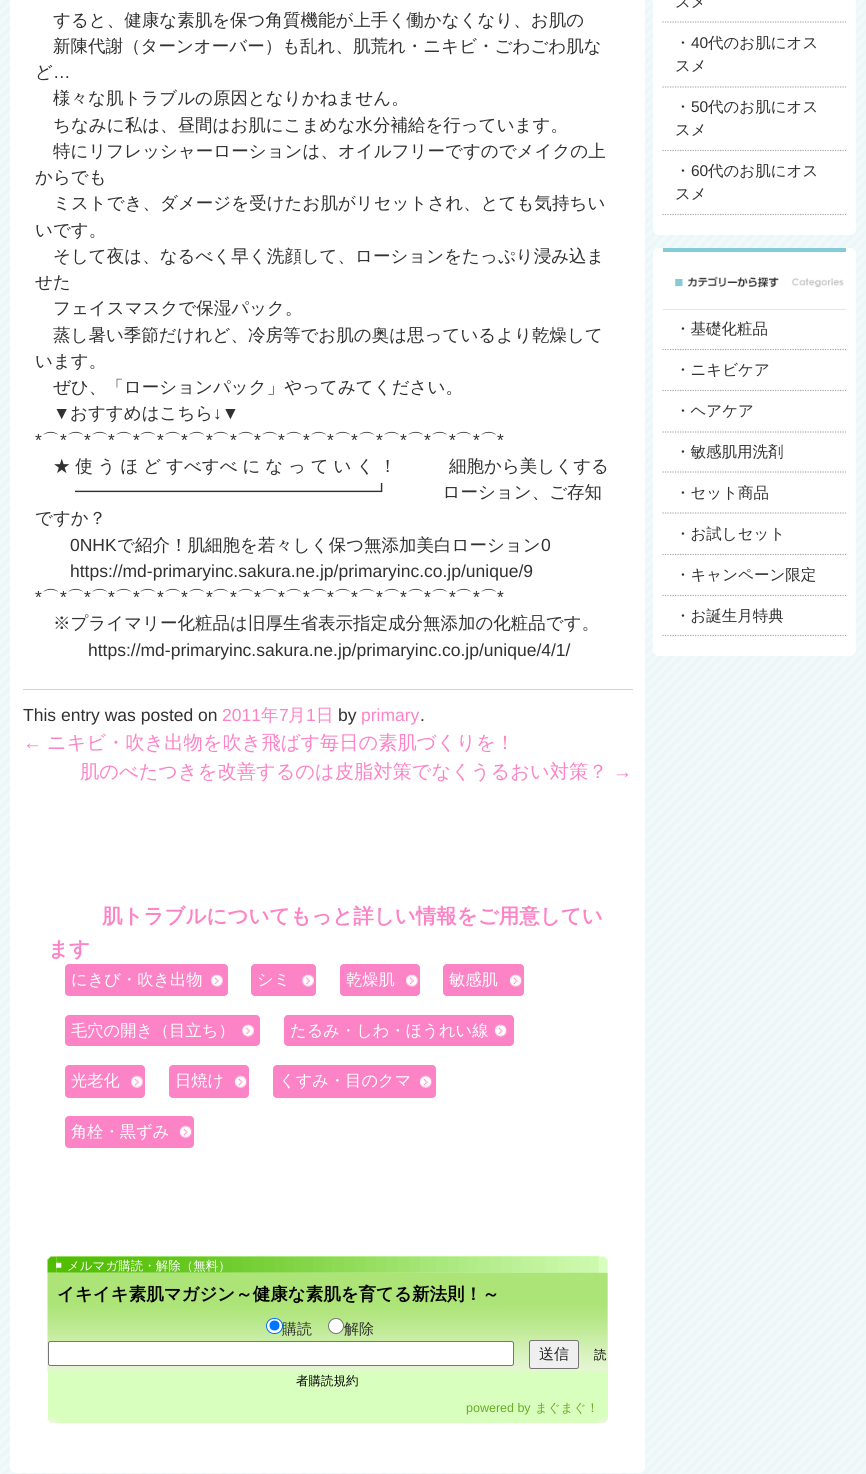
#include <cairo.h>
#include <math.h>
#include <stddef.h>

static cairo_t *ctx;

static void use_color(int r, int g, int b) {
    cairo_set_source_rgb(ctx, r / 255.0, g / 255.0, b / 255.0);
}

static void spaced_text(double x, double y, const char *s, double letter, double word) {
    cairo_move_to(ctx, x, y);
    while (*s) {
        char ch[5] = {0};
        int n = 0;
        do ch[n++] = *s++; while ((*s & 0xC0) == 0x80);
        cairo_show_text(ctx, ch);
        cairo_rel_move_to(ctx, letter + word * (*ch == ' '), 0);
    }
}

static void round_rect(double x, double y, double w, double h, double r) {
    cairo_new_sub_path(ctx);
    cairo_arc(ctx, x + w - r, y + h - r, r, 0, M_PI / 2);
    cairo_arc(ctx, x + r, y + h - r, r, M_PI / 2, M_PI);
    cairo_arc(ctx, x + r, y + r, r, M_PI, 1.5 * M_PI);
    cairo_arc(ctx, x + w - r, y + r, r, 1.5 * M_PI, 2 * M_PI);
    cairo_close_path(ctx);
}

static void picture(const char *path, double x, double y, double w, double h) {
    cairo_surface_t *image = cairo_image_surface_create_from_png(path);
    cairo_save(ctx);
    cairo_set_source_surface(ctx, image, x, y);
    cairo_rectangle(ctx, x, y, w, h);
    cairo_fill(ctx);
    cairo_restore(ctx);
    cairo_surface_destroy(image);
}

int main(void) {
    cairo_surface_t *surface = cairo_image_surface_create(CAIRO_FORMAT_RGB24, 866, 1474);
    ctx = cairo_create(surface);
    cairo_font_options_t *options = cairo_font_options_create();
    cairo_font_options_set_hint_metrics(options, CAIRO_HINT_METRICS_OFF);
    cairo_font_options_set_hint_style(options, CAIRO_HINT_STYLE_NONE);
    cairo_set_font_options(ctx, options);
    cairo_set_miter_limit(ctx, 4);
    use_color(255, 255, 255);
    cairo_paint(ctx);
    picture("img1.png", 0, 0, 866, 1474);
    use_color(255, 255, 255);
    round_rect(10, -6, 635, 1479, 6);
    cairo_fill(ctx);
    use_color(210, 210, 210);
    cairo_rectangle(ctx, 23, 689, 610, 1);
    cairo_fill(ctx);
    cairo_select_font_face(ctx, "WenQuanYi Zen Hei Medium", CAIRO_FONT_SLANT_NORMAL, CAIRO_FONT_WEIGHT_NORMAL);
    cairo_set_font_size(ctx, 17.5);
    use_color(49, 49, 49);
    cairo_move_to(ctx, 53, 26);
    cairo_show_text(ctx, "すると、健康な素肌を保つ角質機能が上手く働かなくなり、お肌の");
    cairo_move_to(ctx, 53, 52);
    cairo_show_text(ctx, "新陳代謝（ターンオーバー）も乱れ、肌荒れ・ニキビ・ごわごわ肌な");
    cairo_move_to(ctx, 35, 78);
    cairo_show_text(ctx, "ど");
    cairo_select_font_face(ctx, "Liberation Sans", CAIRO_FONT_SLANT_NORMAL, CAIRO_FONT_WEIGHT_NORMAL);
    cairo_move_to(ctx, 53, 78);
    cairo_show_text(ctx, "…");
    cairo_select_font_face(ctx, "WenQuanYi Zen Hei Medium", CAIRO_FONT_SLANT_NORMAL, CAIRO_FONT_WEIGHT_NORMAL);
    cairo_move_to(ctx, 53, 104);
    cairo_show_text(ctx, "様々な肌トラブルの原因となりかねません。");
    cairo_move_to(ctx, 53, 131);
    cairo_show_text(ctx, "ちなみに私は、昼間はお肌にこまめな水分補給を行っています。");
    cairo_move_to(ctx, 53, 157);
    cairo_show_text(ctx, "特にリフレッシャーローションは、オイルフリーですのでメイクの上");
    cairo_move_to(ctx, 35, 183);
    cairo_show_text(ctx, "からでも");
    cairo_move_to(ctx, 53, 209);
    cairo_show_text(ctx, "ミストでき、ダメージを受けたお肌がリセットされ、とても気持ちい");
    cairo_move_to(ctx, 35, 236);
    cairo_show_text(ctx, "いです。");
    cairo_move_to(ctx, 53, 262);
    cairo_show_text(ctx, "そして夜は、なるべく早く洗顔して、ローションをたっぷり浸み込ま");
    cairo_move_to(ctx, 35, 288);
    cairo_show_text(ctx, "せた");
    cairo_move_to(ctx, 53, 314);
    cairo_show_text(ctx, "フェイスマスクで保湿パック。");
    cairo_move_to(ctx, 53, 341);
    cairo_show_text(ctx, "蒸し暑い季節だけれど、冷房等でお肌の奥は思っているより乾燥して");
    cairo_move_to(ctx, 35, 367);
    cairo_show_text(ctx, "います。");
    cairo_move_to(ctx, 53, 393);
    cairo_show_text(ctx, "ぜひ、「ローションパック」やってみてください。");
    cairo_select_font_face(ctx, "Liberation Sans", CAIRO_FONT_SLANT_NORMAL, CAIRO_FONT_WEIGHT_NORMAL);
    cairo_move_to(ctx, 53, 419);
    cairo_show_text(ctx, "▼");
    cairo_select_font_face(ctx, "WenQuanYi Zen Hei Medium", CAIRO_FONT_SLANT_NORMAL, CAIRO_FONT_WEIGHT_NORMAL);
    cairo_move_to(ctx, 70, 419);
    cairo_show_text(ctx, "おすすめはこちら");
    cairo_select_font_face(ctx, "Liberation Sans", CAIRO_FONT_SLANT_NORMAL, CAIRO_FONT_WEIGHT_NORMAL);
    cairo_move_to(ctx, 213, 419);
    cairo_show_text(ctx, "↓▼");
    cairo_move_to(ctx, 35, 446);
    cairo_show_text(ctx, "*");
    cairo_select_font_face(ctx, "WenQuanYi Zen Hei Medium", CAIRO_FONT_SLANT_NORMAL, CAIRO_FONT_WEIGHT_NORMAL);
    cairo_move_to(ctx, 42, 446);
    cairo_show_text(ctx, "⌒");
    cairo_select_font_face(ctx, "Liberation Sans", CAIRO_FONT_SLANT_NORMAL, CAIRO_FONT_WEIGHT_NORMAL);
    cairo_move_to(ctx, 60, 446);
    cairo_show_text(ctx, "*");
    cairo_select_font_face(ctx, "WenQuanYi Zen Hei Medium", CAIRO_FONT_SLANT_NORMAL, CAIRO_FONT_WEIGHT_NORMAL);
    cairo_move_to(ctx, 67, 446);
    cairo_show_text(ctx, "⌒");
    cairo_select_font_face(ctx, "Liberation Sans", CAIRO_FONT_SLANT_NORMAL, CAIRO_FONT_WEIGHT_NORMAL);
    cairo_move_to(ctx, 84, 446);
    cairo_show_text(ctx, "*");
    cairo_select_font_face(ctx, "WenQuanYi Zen Hei Medium", CAIRO_FONT_SLANT_NORMAL, CAIRO_FONT_WEIGHT_NORMAL);
    cairo_move_to(ctx, 91, 446);
    cairo_show_text(ctx, "⌒");
    cairo_select_font_face(ctx, "Liberation Sans", CAIRO_FONT_SLANT_NORMAL, CAIRO_FONT_WEIGHT_NORMAL);
    cairo_move_to(ctx, 108, 446);
    cairo_show_text(ctx, "*");
    cairo_select_font_face(ctx, "WenQuanYi Zen Hei Medium", CAIRO_FONT_SLANT_NORMAL, CAIRO_FONT_WEIGHT_NORMAL);
    cairo_move_to(ctx, 115, 446);
    cairo_show_text(ctx, "⌒");
    cairo_select_font_face(ctx, "Liberation Sans", CAIRO_FONT_SLANT_NORMAL, CAIRO_FONT_WEIGHT_NORMAL);
    cairo_move_to(ctx, 133, 446);
    cairo_show_text(ctx, "*");
    cairo_select_font_face(ctx, "WenQuanYi Zen Hei Medium", CAIRO_FONT_SLANT_NORMAL, CAIRO_FONT_WEIGHT_NORMAL);
    cairo_move_to(ctx, 139, 446);
    cairo_show_text(ctx, "⌒");
    cairo_select_font_face(ctx, "Liberation Sans", CAIRO_FONT_SLANT_NORMAL, CAIRO_FONT_WEIGHT_NORMAL);
    cairo_move_to(ctx, 157, 446);
    cairo_show_text(ctx, "*");
    cairo_select_font_face(ctx, "WenQuanYi Zen Hei Medium", CAIRO_FONT_SLANT_NORMAL, CAIRO_FONT_WEIGHT_NORMAL);
    cairo_move_to(ctx, 164, 446);
    cairo_show_text(ctx, "⌒");
    cairo_select_font_face(ctx, "Liberation Sans", CAIRO_FONT_SLANT_NORMAL, CAIRO_FONT_WEIGHT_NORMAL);
    cairo_move_to(ctx, 181, 446);
    cairo_show_text(ctx, "*");
    cairo_select_font_face(ctx, "WenQuanYi Zen Hei Medium", CAIRO_FONT_SLANT_NORMAL, CAIRO_FONT_WEIGHT_NORMAL);
    cairo_move_to(ctx, 188, 446);
    cairo_show_text(ctx, "⌒");
    cairo_select_font_face(ctx, "Liberation Sans", CAIRO_FONT_SLANT_NORMAL, CAIRO_FONT_WEIGHT_NORMAL);
    cairo_move_to(ctx, 206, 446);
    cairo_show_text(ctx, "*");
    cairo_select_font_face(ctx, "WenQuanYi Zen Hei Medium", CAIRO_FONT_SLANT_NORMAL, CAIRO_FONT_WEIGHT_NORMAL);
    cairo_move_to(ctx, 212, 446);
    cairo_show_text(ctx, "⌒");
    cairo_select_font_face(ctx, "Liberation Sans", CAIRO_FONT_SLANT_NORMAL, CAIRO_FONT_WEIGHT_NORMAL);
    cairo_move_to(ctx, 230, 446);
    cairo_show_text(ctx, "*");
    cairo_select_font_face(ctx, "WenQuanYi Zen Hei Medium", CAIRO_FONT_SLANT_NORMAL, CAIRO_FONT_WEIGHT_NORMAL);
    cairo_move_to(ctx, 237, 446);
    cairo_show_text(ctx, "⌒");
    cairo_select_font_face(ctx, "Liberation Sans", CAIRO_FONT_SLANT_NORMAL, CAIRO_FONT_WEIGHT_NORMAL);
    cairo_move_to(ctx, 254, 446);
    cairo_show_text(ctx, "*");
    cairo_select_font_face(ctx, "WenQuanYi Zen Hei Medium", CAIRO_FONT_SLANT_NORMAL, CAIRO_FONT_WEIGHT_NORMAL);
    cairo_move_to(ctx, 261, 446);
    cairo_show_text(ctx, "⌒");
    cairo_select_font_face(ctx, "Liberation Sans", CAIRO_FONT_SLANT_NORMAL, CAIRO_FONT_WEIGHT_NORMAL);
    cairo_move_to(ctx, 278, 446);
    cairo_show_text(ctx, "*");
    cairo_select_font_face(ctx, "WenQuanYi Zen Hei Medium", CAIRO_FONT_SLANT_NORMAL, CAIRO_FONT_WEIGHT_NORMAL);
    cairo_move_to(ctx, 285, 446);
    cairo_show_text(ctx, "⌒");
    cairo_select_font_face(ctx, "Liberation Sans", CAIRO_FONT_SLANT_NORMAL, CAIRO_FONT_WEIGHT_NORMAL);
    cairo_move_to(ctx, 303, 446);
    cairo_show_text(ctx, "*");
    cairo_select_font_face(ctx, "WenQuanYi Zen Hei Medium", CAIRO_FONT_SLANT_NORMAL, CAIRO_FONT_WEIGHT_NORMAL);
    cairo_move_to(ctx, 310, 446);
    cairo_show_text(ctx, "⌒");
    cairo_select_font_face(ctx, "Liberation Sans", CAIRO_FONT_SLANT_NORMAL, CAIRO_FONT_WEIGHT_NORMAL);
    cairo_move_to(ctx, 327, 446);
    cairo_show_text(ctx, "*");
    cairo_select_font_face(ctx, "WenQuanYi Zen Hei Medium", CAIRO_FONT_SLANT_NORMAL, CAIRO_FONT_WEIGHT_NORMAL);
    cairo_move_to(ctx, 334, 446);
    cairo_show_text(ctx, "⌒");
    cairo_select_font_face(ctx, "Liberation Sans", CAIRO_FONT_SLANT_NORMAL, CAIRO_FONT_WEIGHT_NORMAL);
    cairo_move_to(ctx, 351, 446);
    cairo_show_text(ctx, "*");
    cairo_select_font_face(ctx, "WenQuanYi Zen Hei Medium", CAIRO_FONT_SLANT_NORMAL, CAIRO_FONT_WEIGHT_NORMAL);
    cairo_move_to(ctx, 358, 446);
    cairo_show_text(ctx, "⌒");
    cairo_select_font_face(ctx, "Liberation Sans", CAIRO_FONT_SLANT_NORMAL, CAIRO_FONT_WEIGHT_NORMAL);
    cairo_move_to(ctx, 376, 446);
    cairo_show_text(ctx, "*");
    cairo_select_font_face(ctx, "WenQuanYi Zen Hei Medium", CAIRO_FONT_SLANT_NORMAL, CAIRO_FONT_WEIGHT_NORMAL);
    cairo_move_to(ctx, 383, 446);
    cairo_show_text(ctx, "⌒");
    cairo_select_font_face(ctx, "Liberation Sans", CAIRO_FONT_SLANT_NORMAL, CAIRO_FONT_WEIGHT_NORMAL);
    cairo_move_to(ctx, 400, 446);
    cairo_show_text(ctx, "*");
    cairo_select_font_face(ctx, "WenQuanYi Zen Hei Medium", CAIRO_FONT_SLANT_NORMAL, CAIRO_FONT_WEIGHT_NORMAL);
    cairo_move_to(ctx, 407, 446);
    cairo_show_text(ctx, "⌒");
    cairo_select_font_face(ctx, "Liberation Sans", CAIRO_FONT_SLANT_NORMAL, CAIRO_FONT_WEIGHT_NORMAL);
    cairo_move_to(ctx, 424, 446);
    cairo_show_text(ctx, "*");
    cairo_select_font_face(ctx, "WenQuanYi Zen Hei Medium", CAIRO_FONT_SLANT_NORMAL, CAIRO_FONT_WEIGHT_NORMAL);
    cairo_move_to(ctx, 431, 446);
    cairo_show_text(ctx, "⌒");
    cairo_select_font_face(ctx, "Liberation Sans", CAIRO_FONT_SLANT_NORMAL, CAIRO_FONT_WEIGHT_NORMAL);
    cairo_move_to(ctx, 449, 446);
    cairo_show_text(ctx, "*");
    cairo_select_font_face(ctx, "WenQuanYi Zen Hei Medium", CAIRO_FONT_SLANT_NORMAL, CAIRO_FONT_WEIGHT_NORMAL);
    cairo_move_to(ctx, 455, 446);
    cairo_show_text(ctx, "⌒");
    cairo_select_font_face(ctx, "Liberation Sans", CAIRO_FONT_SLANT_NORMAL, CAIRO_FONT_WEIGHT_NORMAL);
    cairo_move_to(ctx, 473, 446);
    cairo_show_text(ctx, "*");
    cairo_select_font_face(ctx, "WenQuanYi Zen Hei Medium", CAIRO_FONT_SLANT_NORMAL, CAIRO_FONT_WEIGHT_NORMAL);
    cairo_move_to(ctx, 480, 446);
    cairo_show_text(ctx, "⌒");
    cairo_select_font_face(ctx, "Liberation Sans", CAIRO_FONT_SLANT_NORMAL, CAIRO_FONT_WEIGHT_NORMAL);
    cairo_move_to(ctx, 497, 446);
    cairo_show_text(ctx, "*");
    cairo_select_font_face(ctx, "WenQuanYi Zen Hei Medium", CAIRO_FONT_SLANT_NORMAL, CAIRO_FONT_WEIGHT_NORMAL);
    spaced_text(53, 472, "★ 使 う ほ ど すべすべ に な っ て い く ！　　　細胞から美しくする", 0, -0.4);
    cairo_move_to(ctx, 75, 498);
    cairo_show_text(ctx, "━━━━━━━━━━━━━━━━━┛　　　ローション、ご存知");
    cairo_move_to(ctx, 35, 524);
    cairo_show_text(ctx, "ですか？");
    cairo_select_font_face(ctx, "Liberation Sans", CAIRO_FONT_SLANT_NORMAL, CAIRO_FONT_WEIGHT_NORMAL);
    cairo_move_to(ctx, 70, 551);
    cairo_show_text(ctx, "0NHK");
    cairo_select_font_face(ctx, "WenQuanYi Zen Hei Medium", CAIRO_FONT_SLANT_NORMAL, CAIRO_FONT_WEIGHT_NORMAL);
    cairo_move_to(ctx, 117, 551);
    cairo_show_text(ctx, "で紹介！肌細胞を若々しく保つ無添加美白ローション");
    cairo_select_font_face(ctx, "Liberation Sans", CAIRO_FONT_SLANT_NORMAL, CAIRO_FONT_WEIGHT_NORMAL);
    cairo_move_to(ctx, 541, 551);
    cairo_show_text(ctx, "0");
    cairo_move_to(ctx, 70, 577);
    cairo_show_text(ctx, "https://md-primaryinc.sakura.ne.jp/primaryinc.co.jp/unique/9");
    cairo_move_to(ctx, 35, 603);
    cairo_show_text(ctx, "*");
    cairo_select_font_face(ctx, "WenQuanYi Zen Hei Medium", CAIRO_FONT_SLANT_NORMAL, CAIRO_FONT_WEIGHT_NORMAL);
    cairo_move_to(ctx, 42, 603);
    cairo_show_text(ctx, "⌒");
    cairo_select_font_face(ctx, "Liberation Sans", CAIRO_FONT_SLANT_NORMAL, CAIRO_FONT_WEIGHT_NORMAL);
    cairo_move_to(ctx, 60, 603);
    cairo_show_text(ctx, "*");
    cairo_select_font_face(ctx, "WenQuanYi Zen Hei Medium", CAIRO_FONT_SLANT_NORMAL, CAIRO_FONT_WEIGHT_NORMAL);
    cairo_move_to(ctx, 67, 603);
    cairo_show_text(ctx, "⌒");
    cairo_select_font_face(ctx, "Liberation Sans", CAIRO_FONT_SLANT_NORMAL, CAIRO_FONT_WEIGHT_NORMAL);
    cairo_move_to(ctx, 84, 603);
    cairo_show_text(ctx, "*");
    cairo_select_font_face(ctx, "WenQuanYi Zen Hei Medium", CAIRO_FONT_SLANT_NORMAL, CAIRO_FONT_WEIGHT_NORMAL);
    cairo_move_to(ctx, 91, 603);
    cairo_show_text(ctx, "⌒");
    cairo_select_font_face(ctx, "Liberation Sans", CAIRO_FONT_SLANT_NORMAL, CAIRO_FONT_WEIGHT_NORMAL);
    cairo_move_to(ctx, 108, 603);
    cairo_show_text(ctx, "*");
    cairo_select_font_face(ctx, "WenQuanYi Zen Hei Medium", CAIRO_FONT_SLANT_NORMAL, CAIRO_FONT_WEIGHT_NORMAL);
    cairo_move_to(ctx, 115, 603);
    cairo_show_text(ctx, "⌒");
    cairo_select_font_face(ctx, "Liberation Sans", CAIRO_FONT_SLANT_NORMAL, CAIRO_FONT_WEIGHT_NORMAL);
    cairo_move_to(ctx, 133, 603);
    cairo_show_text(ctx, "*");
    cairo_select_font_face(ctx, "WenQuanYi Zen Hei Medium", CAIRO_FONT_SLANT_NORMAL, CAIRO_FONT_WEIGHT_NORMAL);
    cairo_move_to(ctx, 139, 603);
    cairo_show_text(ctx, "⌒");
    cairo_select_font_face(ctx, "Liberation Sans", CAIRO_FONT_SLANT_NORMAL, CAIRO_FONT_WEIGHT_NORMAL);
    cairo_move_to(ctx, 157, 603);
    cairo_show_text(ctx, "*");
    cairo_select_font_face(ctx, "WenQuanYi Zen Hei Medium", CAIRO_FONT_SLANT_NORMAL, CAIRO_FONT_WEIGHT_NORMAL);
    cairo_move_to(ctx, 164, 603);
    cairo_show_text(ctx, "⌒");
    cairo_select_font_face(ctx, "Liberation Sans", CAIRO_FONT_SLANT_NORMAL, CAIRO_FONT_WEIGHT_NORMAL);
    cairo_move_to(ctx, 181, 603);
    cairo_show_text(ctx, "*");
    cairo_select_font_face(ctx, "WenQuanYi Zen Hei Medium", CAIRO_FONT_SLANT_NORMAL, CAIRO_FONT_WEIGHT_NORMAL);
    cairo_move_to(ctx, 188, 603);
    cairo_show_text(ctx, "⌒");
    cairo_select_font_face(ctx, "Liberation Sans", CAIRO_FONT_SLANT_NORMAL, CAIRO_FONT_WEIGHT_NORMAL);
    cairo_move_to(ctx, 206, 603);
    cairo_show_text(ctx, "*");
    cairo_select_font_face(ctx, "WenQuanYi Zen Hei Medium", CAIRO_FONT_SLANT_NORMAL, CAIRO_FONT_WEIGHT_NORMAL);
    cairo_move_to(ctx, 212, 603);
    cairo_show_text(ctx, "⌒");
    cairo_select_font_face(ctx, "Liberation Sans", CAIRO_FONT_SLANT_NORMAL, CAIRO_FONT_WEIGHT_NORMAL);
    cairo_move_to(ctx, 230, 603);
    cairo_show_text(ctx, "*");
    cairo_select_font_face(ctx, "WenQuanYi Zen Hei Medium", CAIRO_FONT_SLANT_NORMAL, CAIRO_FONT_WEIGHT_NORMAL);
    cairo_move_to(ctx, 237, 603);
    cairo_show_text(ctx, "⌒");
    cairo_select_font_face(ctx, "Liberation Sans", CAIRO_FONT_SLANT_NORMAL, CAIRO_FONT_WEIGHT_NORMAL);
    cairo_move_to(ctx, 254, 603);
    cairo_show_text(ctx, "*");
    cairo_select_font_face(ctx, "WenQuanYi Zen Hei Medium", CAIRO_FONT_SLANT_NORMAL, CAIRO_FONT_WEIGHT_NORMAL);
    cairo_move_to(ctx, 261, 603);
    cairo_show_text(ctx, "⌒");
    cairo_select_font_face(ctx, "Liberation Sans", CAIRO_FONT_SLANT_NORMAL, CAIRO_FONT_WEIGHT_NORMAL);
    cairo_move_to(ctx, 278, 603);
    cairo_show_text(ctx, "*");
    cairo_select_font_face(ctx, "WenQuanYi Zen Hei Medium", CAIRO_FONT_SLANT_NORMAL, CAIRO_FONT_WEIGHT_NORMAL);
    cairo_move_to(ctx, 285, 603);
    cairo_show_text(ctx, "⌒");
    cairo_select_font_face(ctx, "Liberation Sans", CAIRO_FONT_SLANT_NORMAL, CAIRO_FONT_WEIGHT_NORMAL);
    cairo_move_to(ctx, 303, 603);
    cairo_show_text(ctx, "*");
    cairo_select_font_face(ctx, "WenQuanYi Zen Hei Medium", CAIRO_FONT_SLANT_NORMAL, CAIRO_FONT_WEIGHT_NORMAL);
    cairo_move_to(ctx, 310, 603);
    cairo_show_text(ctx, "⌒");
    cairo_select_font_face(ctx, "Liberation Sans", CAIRO_FONT_SLANT_NORMAL, CAIRO_FONT_WEIGHT_NORMAL);
    cairo_move_to(ctx, 327, 603);
    cairo_show_text(ctx, "*");
    cairo_select_font_face(ctx, "WenQuanYi Zen Hei Medium", CAIRO_FONT_SLANT_NORMAL, CAIRO_FONT_WEIGHT_NORMAL);
    cairo_move_to(ctx, 334, 603);
    cairo_show_text(ctx, "⌒");
    cairo_select_font_face(ctx, "Liberation Sans", CAIRO_FONT_SLANT_NORMAL, CAIRO_FONT_WEIGHT_NORMAL);
    cairo_move_to(ctx, 351, 603);
    cairo_show_text(ctx, "*");
    cairo_select_font_face(ctx, "WenQuanYi Zen Hei Medium", CAIRO_FONT_SLANT_NORMAL, CAIRO_FONT_WEIGHT_NORMAL);
    cairo_move_to(ctx, 358, 603);
    cairo_show_text(ctx, "⌒");
    cairo_select_font_face(ctx, "Liberation Sans", CAIRO_FONT_SLANT_NORMAL, CAIRO_FONT_WEIGHT_NORMAL);
    cairo_move_to(ctx, 376, 603);
    cairo_show_text(ctx, "*");
    cairo_select_font_face(ctx, "WenQuanYi Zen Hei Medium", CAIRO_FONT_SLANT_NORMAL, CAIRO_FONT_WEIGHT_NORMAL);
    cairo_move_to(ctx, 383, 603);
    cairo_show_text(ctx, "⌒");
    cairo_select_font_face(ctx, "Liberation Sans", CAIRO_FONT_SLANT_NORMAL, CAIRO_FONT_WEIGHT_NORMAL);
    cairo_move_to(ctx, 400, 603);
    cairo_show_text(ctx, "*");
    cairo_select_font_face(ctx, "WenQuanYi Zen Hei Medium", CAIRO_FONT_SLANT_NORMAL, CAIRO_FONT_WEIGHT_NORMAL);
    cairo_move_to(ctx, 407, 603);
    cairo_show_text(ctx, "⌒");
    cairo_select_font_face(ctx, "Liberation Sans", CAIRO_FONT_SLANT_NORMAL, CAIRO_FONT_WEIGHT_NORMAL);
    cairo_move_to(ctx, 424, 603);
    cairo_show_text(ctx, "*");
    cairo_select_font_face(ctx, "WenQuanYi Zen Hei Medium", CAIRO_FONT_SLANT_NORMAL, CAIRO_FONT_WEIGHT_NORMAL);
    cairo_move_to(ctx, 431, 603);
    cairo_show_text(ctx, "⌒");
    cairo_select_font_face(ctx, "Liberation Sans", CAIRO_FONT_SLANT_NORMAL, CAIRO_FONT_WEIGHT_NORMAL);
    cairo_move_to(ctx, 449, 603);
    cairo_show_text(ctx, "*");
    cairo_select_font_face(ctx, "WenQuanYi Zen Hei Medium", CAIRO_FONT_SLANT_NORMAL, CAIRO_FONT_WEIGHT_NORMAL);
    cairo_move_to(ctx, 455, 603);
    cairo_show_text(ctx, "⌒");
    cairo_select_font_face(ctx, "Liberation Sans", CAIRO_FONT_SLANT_NORMAL, CAIRO_FONT_WEIGHT_NORMAL);
    cairo_move_to(ctx, 473, 603);
    cairo_show_text(ctx, "*");
    cairo_select_font_face(ctx, "WenQuanYi Zen Hei Medium", CAIRO_FONT_SLANT_NORMAL, CAIRO_FONT_WEIGHT_NORMAL);
    cairo_move_to(ctx, 480, 603);
    cairo_show_text(ctx, "⌒");
    cairo_select_font_face(ctx, "Liberation Sans", CAIRO_FONT_SLANT_NORMAL, CAIRO_FONT_WEIGHT_NORMAL);
    cairo_move_to(ctx, 497, 603);
    cairo_show_text(ctx, "*");
    cairo_select_font_face(ctx, "WenQuanYi Zen Hei Medium", CAIRO_FONT_SLANT_NORMAL, CAIRO_FONT_WEIGHT_NORMAL);
    cairo_move_to(ctx, 53, 629);
    cairo_show_text(ctx, "※プライマリー化粧品は旧厚生省表示指定成分無添加の化粧品です。");
    cairo_select_font_face(ctx, "Liberation Sans", CAIRO_FONT_SLANT_NORMAL, CAIRO_FONT_WEIGHT_NORMAL);
    cairo_move_to(ctx, 88, 656);
    cairo_show_text(ctx, "https://md-primaryinc.sakura.ne.jp/primaryinc.co.jp/unique/4/1/");
    cairo_move_to(ctx, 23, 721);
    cairo_show_text(ctx, "This entry was posted on");
    use_color(252, 131, 198);
    cairo_move_to(ctx, 222, 721);
    cairo_show_text(ctx, "2011");
    cairo_select_font_face(ctx, "WenQuanYi Zen Hei Medium", CAIRO_FONT_SLANT_NORMAL, CAIRO_FONT_WEIGHT_NORMAL);
    cairo_move_to(ctx, 261, 721);
    cairo_show_text(ctx, "年");
    cairo_select_font_face(ctx, "Liberation Sans", CAIRO_FONT_SLANT_NORMAL, CAIRO_FONT_WEIGHT_NORMAL);
    cairo_move_to(ctx, 279, 721);
    cairo_show_text(ctx, "7");
    cairo_select_font_face(ctx, "WenQuanYi Zen Hei Medium", CAIRO_FONT_SLANT_NORMAL, CAIRO_FONT_WEIGHT_NORMAL);
    cairo_move_to(ctx, 288, 721);
    cairo_show_text(ctx, "月");
    cairo_select_font_face(ctx, "Liberation Sans", CAIRO_FONT_SLANT_NORMAL, CAIRO_FONT_WEIGHT_NORMAL);
    cairo_move_to(ctx, 306, 721);
    cairo_show_text(ctx, "1");
    cairo_select_font_face(ctx, "WenQuanYi Zen Hei Medium", CAIRO_FONT_SLANT_NORMAL, CAIRO_FONT_WEIGHT_NORMAL);
    cairo_move_to(ctx, 316, 721);
    cairo_show_text(ctx, "日");
    cairo_select_font_face(ctx, "Liberation Sans", CAIRO_FONT_SLANT_NORMAL, CAIRO_FONT_WEIGHT_NORMAL);
    use_color(49, 49, 49);
    cairo_move_to(ctx, 338, 721);
    cairo_show_text(ctx, "by");
    use_color(252, 131, 198);
    cairo_move_to(ctx, 361, 721);
    cairo_show_text(ctx, "primary");
    use_color(49, 49, 49);
    cairo_move_to(ctx, 420, 721);
    cairo_show_text(ctx, ".");
    cairo_set_font_size(ctx, 19.25);
    use_color(252, 131, 198);
    cairo_move_to(ctx, 23, 749);
    cairo_show_text(ctx, "←");
    cairo_select_font_face(ctx, "WenQuanYi Zen Hei Medium", CAIRO_FONT_SLANT_NORMAL, CAIRO_FONT_WEIGHT_NORMAL);
    cairo_move_to(ctx, 47, 749);
    cairo_show_text(ctx, "ニキビ・吹き出物を吹き飛ばす毎日の素肌づくりを！");
    cairo_move_to(ctx, 80, 778);
    cairo_show_text(ctx, "肌のべたつきを改善するのは皮脂対策でなくうるおい対策？");
    cairo_select_font_face(ctx, "Liberation Sans", CAIRO_FONT_SLANT_NORMAL, CAIRO_FONT_WEIGHT_NORMAL);
    cairo_move_to(ctx, 613, 778);
    cairo_show_text(ctx, "→");
    cairo_select_font_face(ctx, "WenQuanYi Zen Hei", CAIRO_FONT_SLANT_NORMAL, CAIRO_FONT_WEIGHT_BOLD);
    cairo_set_font_size(ctx, 20.5);
    cairo_move_to(ctx, 102, 923);
    cairo_show_text(ctx, "肌トラブルについてもっと詳しい情報をご用意してい");
    cairo_move_to(ctx, 48, 956);
    cairo_show_text(ctx, "ます");
    round_rect(65, 964, 163, 32, 4);
    cairo_fill(ctx);
    picture("img2.png", 211, 974, 12, 13);
    cairo_select_font_face(ctx, "WenQuanYi Zen Hei Medium", CAIRO_FONT_SLANT_NORMAL, CAIRO_FONT_WEIGHT_NORMAL);
    cairo_set_font_size(ctx, 16.25);
    use_color(255, 255, 255);
    cairo_move_to(ctx, 71, 985);
    cairo_show_text(ctx, "にきび・吹き出物");
    use_color(252, 131, 198);
    round_rect(251, 964, 65, 32, 4);
    cairo_fill(ctx);
    picture("img3.png", 302, 974, 12, 13);
    use_color(255, 255, 255);
    cairo_move_to(ctx, 257, 985);
    cairo_show_text(ctx, "シミ");
    use_color(252, 131, 198);
    round_rect(340, 964, 80, 32, 4);
    cairo_fill(ctx);
    picture("img2.png", 406, 974, 12, 13);
    use_color(255, 255, 255);
    cairo_move_to(ctx, 346, 985);
    cairo_show_text(ctx, "乾燥肌");
    use_color(252, 131, 198);
    round_rect(443, 964, 81, 32, 4);
    cairo_fill(ctx);
    picture("img4.png", 509, 974, 13, 13);
    use_color(255, 255, 255);
    cairo_move_to(ctx, 449, 985);
    cairo_show_text(ctx, "敏感肌");
    use_color(252, 131, 198);
    round_rect(65, 1015, 195, 31, 4);
    cairo_fill(ctx);
    picture("img3.png", 242, 1024, 12, 13);
    use_color(255, 255, 255);
    cairo_move_to(ctx, 71, 1036);
    cairo_show_text(ctx, "毛穴の開き（目立ち）");
    use_color(252, 131, 198);
    round_rect(284, 1015, 230, 31, 4);
    cairo_fill(ctx);
    picture("img4.png", 494, 1024, 13, 13);
    use_color(255, 255, 255);
    cairo_move_to(ctx, 290, 1036);
    cairo_show_text(ctx, "たるみ・しわ・ほうれい線");
    use_color(252, 131, 198);
    round_rect(65, 1065, 80, 33, 4);
    cairo_fill(ctx);
    picture("img5.png", 131, 1075, 12, 13);
    use_color(255, 255, 255);
    cairo_move_to(ctx, 71, 1086);
    cairo_show_text(ctx, "光老化");
    use_color(252, 131, 198);
    round_rect(169, 1065, 80, 33, 4);
    cairo_fill(ctx);
    picture("img6.png", 234, 1075, 13, 13);
    use_color(255, 255, 255);
    cairo_move_to(ctx, 175, 1086);
    cairo_show_text(ctx, "日焼け");
    use_color(252, 131, 198);
    round_rect(273, 1065, 163, 33, 4);
    cairo_fill(ctx);
    picture("img6.png", 419, 1075, 13, 13);
    use_color(255, 255, 255);
    cairo_move_to(ctx, 279, 1086);
    cairo_show_text(ctx, "くすみ・目のクマ");
    use_color(252, 131, 198);
    round_rect(65, 1116, 129, 32, 4);
    cairo_fill(ctx);
    picture("img6.png", 179, 1125, 13, 13);
    use_color(255, 255, 255);
    cairo_move_to(ctx, 71, 1137);
    cairo_show_text(ctx, "角栓・黒ずみ");
    picture("img7.png", 47, 1256, 9, 17);
    picture("img8.png", 599, 1256, 9, 17);
    use_color(217, 255, 190);
    cairo_rectangle(ctx, 56, 1256, 543, 17);
    cairo_fill(ctx);
    picture("img9.png", 56, 1256, 543, 17);
    cairo_rectangle(ctx, 48, 1273, 560, 145);
    cairo_fill(ctx);
    picture("img10.png", 47, 1272, 561, 100);
    cairo_set_font_size(ctx, 12.5);
    use_color(255, 255, 255);
    cairo_move_to(ctx, 67, 1270);
    cairo_show_text(ctx, "メルマガ購読・解除（無料）");
    cairo_select_font_face(ctx, "WenQuanYi Zen Hei", CAIRO_FONT_SLANT_NORMAL, CAIRO_FONT_WEIGHT_BOLD);
    cairo_set_font_size(ctx, 17.5);
    use_color(0, 0, 0);
    cairo_move_to(ctx, 57, 1300);
    cairo_show_text(ctx, "イキイキ素肌マガジン～健康な素肌を育てる新法則！～");
    use_color(255, 255, 255);
    round_rect(266.5, 1318.5, 16, 15, 7.5);
    cairo_fill_preserve(ctx);
    use_color(0, 117, 255);
    cairo_set_line_width(ctx, 1);
    cairo_stroke(ctx);
    cairo_arc(ctx, 274.5, 1325.5, 5, 0, 2 * M_PI);
    cairo_fill(ctx);
    cairo_select_font_face(ctx, "WenQuanYi Zen Hei Medium", CAIRO_FONT_SLANT_NORMAL, CAIRO_FONT_WEIGHT_NORMAL);
    cairo_set_font_size(ctx, 15);
    use_color(49, 49, 49);
    cairo_move_to(ctx, 282, 1334);
    cairo_show_text(ctx, "購読");
    use_color(255, 255, 255);
    cairo_new_path(ctx);
    cairo_arc(ctx, 336, 1326, 7.5, 0, 2 * M_PI);
    cairo_fill_preserve(ctx);
    use_color(118, 118, 118);
    cairo_stroke(ctx);
    use_color(49, 49, 49);
    cairo_move_to(ctx, 344, 1334);
    cairo_show_text(ctx, "解除");
    use_color(255, 255, 255);
    round_rect(48.5, 1341.5, 465, 24, 2);
    cairo_fill_preserve(ctx);
    use_color(118, 118, 118);
    cairo_stroke(ctx);
    use_color(239, 239, 239);
    round_rect(529.5, 1340.5, 49, 28, 2);
    cairo_fill_preserve(ctx);
    use_color(118, 118, 118);
    cairo_stroke(ctx);
    use_color(34, 34, 34);
    cairo_move_to(ctx, 539, 1359);
    cairo_show_text(ctx, "送信");
    cairo_set_font_size(ctx, 12.5);
    use_color(0, 0, 0);
    cairo_move_to(ctx, 594, 1359);
    cairo_show_text(ctx, "読");
    cairo_move_to(ctx, 296, 1385);
    cairo_show_text(ctx, "者購読規約");
    cairo_select_font_face(ctx, "Liberation Sans", CAIRO_FONT_SLANT_NORMAL, CAIRO_FONT_WEIGHT_NORMAL);
    use_color(103, 172, 36);
    cairo_move_to(ctx, 466, 1412);
    cairo_show_text(ctx, "powered by");
    cairo_select_font_face(ctx, "WenQuanYi Zen Hei Medium", CAIRO_FONT_SLANT_NORMAL, CAIRO_FONT_WEIGHT_NORMAL);
    cairo_move_to(ctx, 535, 1412);
    cairo_show_text(ctx, "まぐまぐ！");
    picture("img11.png", 47, 1417, 10, 6);
    picture("img12.png", 598, 1417, 10, 6);
    use_color(217, 255, 190);
    cairo_rectangle(ctx, 56, 1418, 543, 5);
    cairo_fill(ctx);
    use_color(255, 255, 255);
    round_rect(653, -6, 203, 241, 6);
    cairo_fill(ctx);
    cairo_new_path(ctx);
    cairo_move_to(ctx, 662.5, 22);
    cairo_line_to(ctx, 846, 22);
    use_color(170, 170, 170);
    cairo_set_line_width(ctx, 1.2);
    cairo_set_dash(ctx, (double[]){1.25, 1.25}, 2, 0);
    cairo_stroke(ctx);
    cairo_set_font_size(ctx, 15.5);
    use_color(49, 49, 49);
    cairo_move_to(ctx, 675, 7);
    cairo_show_text(ctx, "スメ");
    cairo_new_path(ctx);
    cairo_move_to(ctx, 662.5, 87);
    cairo_line_to(ctx, 846, 87);
    use_color(170, 170, 170);
    cairo_stroke(ctx);
    use_color(49, 49, 49);
    cairo_move_to(ctx, 675, 48);
    cairo_show_text(ctx, "・");
    cairo_select_font_face(ctx, "Liberation Sans", CAIRO_FONT_SLANT_NORMAL, CAIRO_FONT_WEIGHT_NORMAL);
    cairo_move_to(ctx, 691, 48);
    cairo_show_text(ctx, "40");
    cairo_select_font_face(ctx, "WenQuanYi Zen Hei Medium", CAIRO_FONT_SLANT_NORMAL, CAIRO_FONT_WEIGHT_NORMAL);
    cairo_move_to(ctx, 708, 48);
    cairo_show_text(ctx, "代のお肌にオス");
    cairo_move_to(ctx, 675, 71);
    cairo_show_text(ctx, "スメ");
    cairo_new_path(ctx);
    cairo_move_to(ctx, 662.5, 150.5);
    cairo_line_to(ctx, 846, 150.5);
    use_color(170, 170, 170);
    cairo_stroke(ctx);
    use_color(49, 49, 49);
    cairo_move_to(ctx, 675, 112);
    cairo_show_text(ctx, "・");
    cairo_select_font_face(ctx, "Liberation Sans", CAIRO_FONT_SLANT_NORMAL, CAIRO_FONT_WEIGHT_NORMAL);
    cairo_move_to(ctx, 691, 112);
    cairo_show_text(ctx, "50");
    cairo_select_font_face(ctx, "WenQuanYi Zen Hei Medium", CAIRO_FONT_SLANT_NORMAL, CAIRO_FONT_WEIGHT_NORMAL);
    cairo_move_to(ctx, 708, 112);
    cairo_show_text(ctx, "代のお肌にオス");
    cairo_move_to(ctx, 675, 135);
    cairo_show_text(ctx, "スメ");
    cairo_new_path(ctx);
    cairo_move_to(ctx, 662.5, 214.5);
    cairo_line_to(ctx, 846, 214.5);
    use_color(170, 170, 170);
    cairo_stroke(ctx);
    use_color(49, 49, 49);
    cairo_move_to(ctx, 675, 176);
    cairo_show_text(ctx, "・");
    cairo_select_font_face(ctx, "Liberation Sans", CAIRO_FONT_SLANT_NORMAL, CAIRO_FONT_WEIGHT_NORMAL);
    cairo_move_to(ctx, 691, 176);
    cairo_show_text(ctx, "60");
    cairo_select_font_face(ctx, "WenQuanYi Zen Hei Medium", CAIRO_FONT_SLANT_NORMAL, CAIRO_FONT_WEIGHT_NORMAL);
    cairo_move_to(ctx, 708, 176);
    cairo_show_text(ctx, "代のお肌にオス");
    cairo_move_to(ctx, 675, 199);
    cairo_show_text(ctx, "スメ");
    use_color(255, 255, 255);
    round_rect(653, 248, 203, 408, 6);
    cairo_fill(ctx);
    use_color(131, 204, 213);
    cairo_rectangle(ctx, 663, 248, 183, 4);
    cairo_fill(ctx);
    use_color(230, 230, 230);
    cairo_rectangle(ctx, 663, 309, 183, 1);
    cairo_fill(ctx);
    picture("img13.png", 675, 276, 169, 12);
    cairo_new_path(ctx);
    cairo_move_to(ctx, 662.5, 349.5);
    cairo_line_to(ctx, 846, 349.5);
    use_color(170, 170, 170);
    cairo_stroke(ctx);
    use_color(49, 49, 49);
    cairo_move_to(ctx, 675, 334);
    cairo_show_text(ctx, "・基礎化粧品");
    cairo_new_path(ctx);
    cairo_move_to(ctx, 662.5, 390.5);
    cairo_line_to(ctx, 846, 390.5);
    use_color(170, 170, 170);
    cairo_stroke(ctx);
    use_color(49, 49, 49);
    cairo_move_to(ctx, 675, 375);
    cairo_show_text(ctx, "・ニキビケア");
    cairo_new_path(ctx);
    cairo_move_to(ctx, 662.5, 432);
    cairo_line_to(ctx, 846, 432);
    use_color(170, 170, 170);
    cairo_stroke(ctx);
    use_color(49, 49, 49);
    cairo_move_to(ctx, 675, 416);
    cairo_show_text(ctx, "・ヘアケア");
    cairo_new_path(ctx);
    cairo_move_to(ctx, 662.5, 472);
    cairo_line_to(ctx, 846, 472);
    use_color(170, 170, 170);
    cairo_stroke(ctx);
    use_color(49, 49, 49);
    cairo_move_to(ctx, 675, 457);
    cairo_show_text(ctx, "・敏感肌用洗剤");
    cairo_new_path(ctx);
    cairo_move_to(ctx, 662.5, 513);
    cairo_line_to(ctx, 846, 513);
    use_color(170, 170, 170);
    cairo_stroke(ctx);
    use_color(49, 49, 49);
    cairo_move_to(ctx, 675, 498);
    cairo_show_text(ctx, "・セット商品");
    cairo_new_path(ctx);
    cairo_move_to(ctx, 662.5, 554.5);
    cairo_line_to(ctx, 846, 554.5);
    use_color(170, 170, 170);
    cairo_stroke(ctx);
    use_color(49, 49, 49);
    cairo_move_to(ctx, 675, 539);
    cairo_show_text(ctx, "・お試しセット");
    cairo_new_path(ctx);
    cairo_move_to(ctx, 662.5, 595.5);
    cairo_line_to(ctx, 846, 595.5);
    use_color(170, 170, 170);
    cairo_stroke(ctx);
    use_color(49, 49, 49);
    cairo_move_to(ctx, 675, 580);
    cairo_show_text(ctx, "・キャンペーン限定");
    cairo_new_path(ctx);
    cairo_move_to(ctx, 662.5, 635.5);
    cairo_line_to(ctx, 846, 635.5);
    use_color(170, 170, 170);
    cairo_stroke(ctx);
    use_color(49, 49, 49);
    cairo_move_to(ctx, 675, 621);
    cairo_show_text(ctx, "・お誕生月特典");
    cairo_surface_write_to_png(surface, "result.png");
    cairo_font_options_destroy(options);
    cairo_destroy(ctx);
    cairo_surface_destroy(surface);
    return 0;
}
